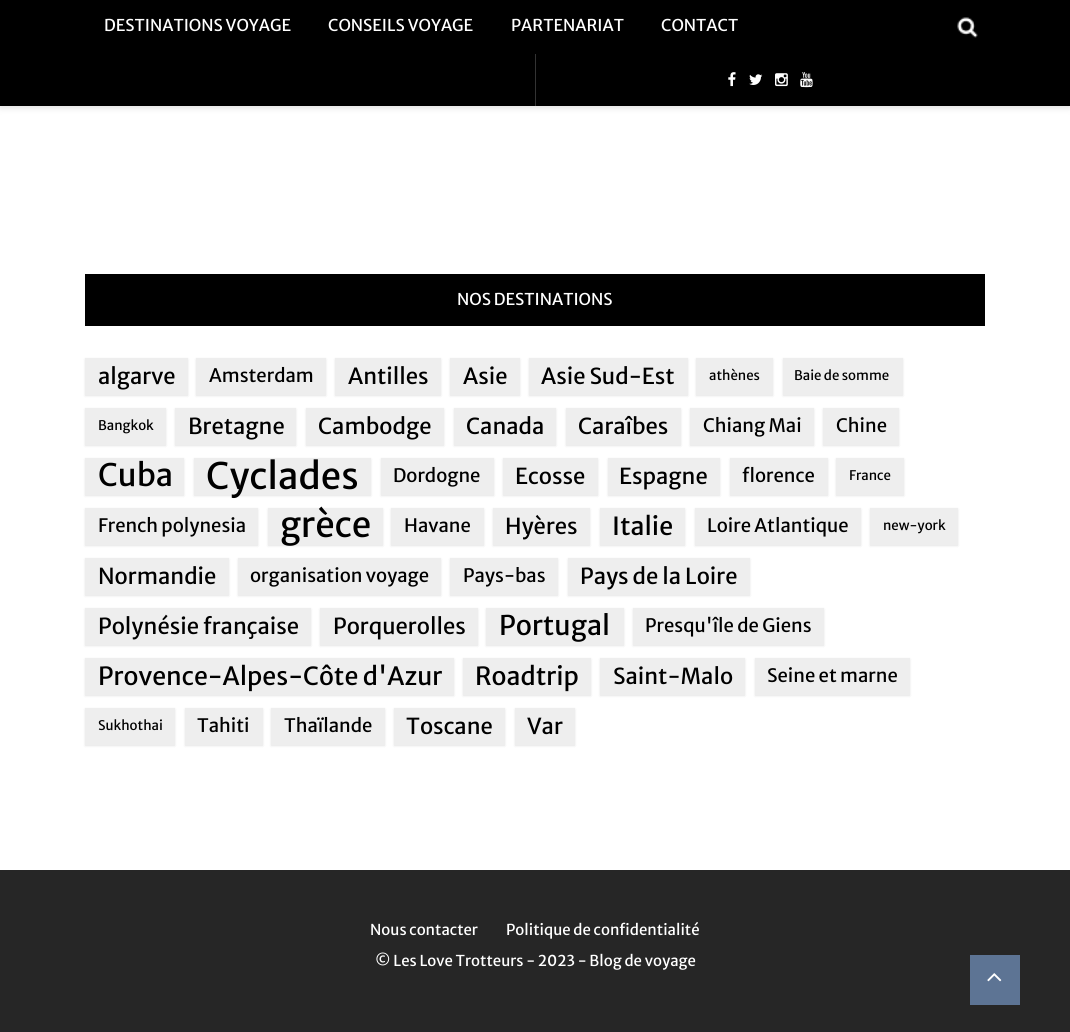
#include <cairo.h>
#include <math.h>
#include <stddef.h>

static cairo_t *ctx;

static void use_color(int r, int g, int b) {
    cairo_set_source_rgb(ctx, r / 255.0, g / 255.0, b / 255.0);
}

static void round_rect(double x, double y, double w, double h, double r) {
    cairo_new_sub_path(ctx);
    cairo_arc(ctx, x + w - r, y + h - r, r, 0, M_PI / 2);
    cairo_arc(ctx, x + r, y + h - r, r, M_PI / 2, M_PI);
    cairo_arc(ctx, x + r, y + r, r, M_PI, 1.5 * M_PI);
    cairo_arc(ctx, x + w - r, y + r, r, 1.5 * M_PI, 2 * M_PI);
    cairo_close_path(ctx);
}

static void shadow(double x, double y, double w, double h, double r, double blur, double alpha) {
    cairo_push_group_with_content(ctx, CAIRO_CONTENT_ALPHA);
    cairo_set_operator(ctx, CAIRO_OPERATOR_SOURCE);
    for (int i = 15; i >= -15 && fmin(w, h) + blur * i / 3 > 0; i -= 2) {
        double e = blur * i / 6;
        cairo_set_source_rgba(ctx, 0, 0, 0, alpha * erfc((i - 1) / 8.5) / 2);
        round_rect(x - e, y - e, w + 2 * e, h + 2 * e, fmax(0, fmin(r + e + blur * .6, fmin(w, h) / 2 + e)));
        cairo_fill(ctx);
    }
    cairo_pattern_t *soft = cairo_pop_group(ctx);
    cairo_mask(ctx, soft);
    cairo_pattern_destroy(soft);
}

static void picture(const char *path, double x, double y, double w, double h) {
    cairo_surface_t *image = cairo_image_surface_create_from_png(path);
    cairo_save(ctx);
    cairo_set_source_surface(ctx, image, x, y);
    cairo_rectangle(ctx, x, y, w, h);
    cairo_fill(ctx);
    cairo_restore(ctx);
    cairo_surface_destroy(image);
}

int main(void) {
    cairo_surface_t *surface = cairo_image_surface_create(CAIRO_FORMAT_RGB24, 1070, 1032);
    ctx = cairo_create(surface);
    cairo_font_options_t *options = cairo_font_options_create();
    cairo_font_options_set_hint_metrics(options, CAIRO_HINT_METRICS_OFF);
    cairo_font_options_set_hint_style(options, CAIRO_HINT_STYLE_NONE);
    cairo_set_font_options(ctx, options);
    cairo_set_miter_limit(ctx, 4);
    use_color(255, 255, 255);
    cairo_paint(ctx);
    use_color(190, 190, 190);
    shadow(0, 1, 1070, 107, 0, 3, 0.45);
    use_color(0, 0, 0);
    cairo_rectangle(ctx, 0, 0, 1070, 106);
    cairo_fill(ctx);
    cairo_select_font_face(ctx, "Merriweather Sans", CAIRO_FONT_SLANT_NORMAL, CAIRO_FONT_WEIGHT_NORMAL);
    cairo_set_font_size(ctx, 16.25);
    use_color(255, 255, 255);
    cairo_move_to(ctx, 104, 31);
    cairo_show_text(ctx, "DESTINATIONS VOYAGE");
    cairo_move_to(ctx, 328, 31);
    cairo_show_text(ctx, "CONSEILS VOYAGE");
    cairo_move_to(ctx, 511, 31);
    cairo_show_text(ctx, "PARTENARIAT");
    cairo_move_to(ctx, 661, 31);
    cairo_show_text(ctx, "CONTACT");
    picture("img1.png", 957, 17, 21, 21);
    use_color(51, 51, 51);
    cairo_rectangle(ctx, 535, 54, 1, 52);
    cairo_fill(ctx);
    picture("img2.png", 728, 72, 8, 15);
    picture("img3.png", 749, 74, 14, 11);
    picture("img4.png", 775, 73, 13, 14);
    picture("img5.png", 800, 72, 13, 16);
    use_color(0, 0, 0);
    cairo_rectangle(ctx, 85, 274, 900, 52);
    cairo_fill(ctx);
    use_color(255, 255, 255);
    cairo_move_to(ctx, 457, 305);
    cairo_show_text(ctx, "NOS DESTINATIONS");
    use_color(0, 0, 0);
    shadow(85, 359, 103, 37, 0, 1, 0.1);
    use_color(238, 238, 238);
    cairo_rectangle(ctx, 85, 358, 103, 37);
    cairo_fill(ctx);
    cairo_set_font_size(ctx, 22);
    use_color(0, 0, 0);
    cairo_move_to(ctx, 98, 384);
    cairo_show_text(ctx, "algarve");
    use_color(0, 0, 0);
    shadow(196, 359, 130, 37, 0, 1, 0.1);
    use_color(238, 238, 238);
    cairo_rectangle(ctx, 196, 358, 130, 37);
    cairo_fill(ctx);
    cairo_set_font_size(ctx, 18.5);
    use_color(0, 0, 0);
    cairo_move_to(ctx, 209, 382);
    cairo_show_text(ctx, "Amsterdam");
    use_color(0, 0, 0);
    shadow(335, 359, 106, 37, 0, 1, 0.1);
    use_color(238, 238, 238);
    cairo_rectangle(ctx, 335, 358, 106, 37);
    cairo_fill(ctx);
    cairo_set_font_size(ctx, 22);
    use_color(0, 0, 0);
    cairo_move_to(ctx, 348, 384);
    cairo_show_text(ctx, "Antilles");
    use_color(0, 0, 0);
    shadow(450, 359, 70, 37, 0, 1, 0.1);
    use_color(238, 238, 238);
    cairo_rectangle(ctx, 450, 358, 70, 37);
    cairo_fill(ctx);
    use_color(0, 0, 0);
    cairo_move_to(ctx, 463, 384);
    cairo_show_text(ctx, "Asie");
    use_color(0, 0, 0);
    shadow(529, 359, 159, 37, 0, 1, 0.1);
    use_color(238, 238, 238);
    cairo_rectangle(ctx, 529, 358, 159, 37);
    cairo_fill(ctx);
    use_color(0, 0, 0);
    cairo_move_to(ctx, 541, 384);
    cairo_show_text(ctx, "Asie Sud-Est");
    use_color(0, 0, 0);
    shadow(696, 359, 77, 37, 0, 1, 0.1);
    use_color(238, 238, 238);
    cairo_rectangle(ctx, 696, 358, 77, 37);
    cairo_fill(ctx);
    cairo_set_font_size(ctx, 13.25);
    use_color(0, 0, 0);
    cairo_move_to(ctx, 709, 380);
    cairo_show_text(ctx, "athènes");
    use_color(0, 0, 0);
    shadow(783, 359, 120, 37, 0, 1, 0.1);
    use_color(238, 238, 238);
    cairo_rectangle(ctx, 783, 358, 120, 37);
    cairo_fill(ctx);
    use_color(0, 0, 0);
    cairo_move_to(ctx, 794, 380);
    cairo_show_text(ctx, "Baie de somme");
    use_color(0, 0, 0);
    shadow(85, 409, 81, 37, 0, 1, 0.1);
    use_color(238, 238, 238);
    cairo_rectangle(ctx, 85, 408, 81, 37);
    cairo_fill(ctx);
    use_color(0, 0, 0);
    cairo_move_to(ctx, 98, 430);
    cairo_show_text(ctx, "Bangkok");
    use_color(0, 0, 0);
    shadow(175, 409, 121, 37, 0, 1, 0.1);
    use_color(238, 238, 238);
    cairo_rectangle(ctx, 175, 408, 121, 37);
    cairo_fill(ctx);
    cairo_set_font_size(ctx, 22);
    use_color(0, 0, 0);
    cairo_move_to(ctx, 188, 434);
    cairo_show_text(ctx, "Bretagne");
    use_color(0, 0, 0);
    shadow(306, 409, 138, 37, 0, 1, 0.1);
    use_color(238, 238, 238);
    cairo_rectangle(ctx, 306, 408, 138, 37);
    cairo_fill(ctx);
    use_color(0, 0, 0);
    cairo_move_to(ctx, 318, 434);
    cairo_show_text(ctx, "Cambodge");
    use_color(0, 0, 0);
    shadow(454, 409, 102, 37, 0, 1, 0.1);
    use_color(238, 238, 238);
    cairo_rectangle(ctx, 454, 408, 102, 37);
    cairo_fill(ctx);
    use_color(0, 0, 0);
    cairo_move_to(ctx, 466, 434);
    cairo_show_text(ctx, "Canada");
    use_color(0, 0, 0);
    shadow(566, 409, 115, 37, 0, 1, 0.1);
    use_color(238, 238, 238);
    cairo_rectangle(ctx, 566, 408, 115, 37);
    cairo_fill(ctx);
    use_color(0, 0, 0);
    cairo_move_to(ctx, 578, 434);
    cairo_show_text(ctx, "Caraîbes");
    use_color(0, 0, 0);
    shadow(690, 409, 124, 37, 0, 1, 0.1);
    use_color(238, 238, 238);
    cairo_rectangle(ctx, 690, 408, 124, 37);
    cairo_fill(ctx);
    cairo_set_font_size(ctx, 18.5);
    use_color(0, 0, 0);
    cairo_move_to(ctx, 703, 432);
    cairo_show_text(ctx, "Chiang Mai");
    use_color(0, 0, 0);
    shadow(823, 409, 76, 37, 0, 1, 0.1);
    use_color(238, 238, 238);
    cairo_rectangle(ctx, 823, 408, 76, 37);
    cairo_fill(ctx);
    use_color(0, 0, 0);
    cairo_move_to(ctx, 836, 432);
    cairo_show_text(ctx, "Chine");
    use_color(0, 0, 0);
    shadow(85, 459, 99, 37, 0, 1, 0.1);
    use_color(238, 238, 238);
    cairo_rectangle(ctx, 85, 458, 99, 37);
    cairo_fill(ctx);
    cairo_set_font_size(ctx, 31);
    use_color(0, 0, 0);
    cairo_move_to(ctx, 98, 486);
    cairo_show_text(ctx, "Cuba");
    use_color(0, 0, 0);
    shadow(194, 459, 177, 37, 0, 1, 0.1);
    use_color(238, 238, 238);
    cairo_rectangle(ctx, 194, 458, 177, 37);
    cairo_fill(ctx);
    cairo_set_font_size(ctx, 36.5);
    use_color(0, 0, 0);
    cairo_move_to(ctx, 206, 489);
    cairo_show_text(ctx, "Cyclades");
    use_color(0, 0, 0);
    shadow(381, 459, 113, 37, 0, 1, 0.1);
    use_color(238, 238, 238);
    cairo_rectangle(ctx, 381, 458, 113, 37);
    cairo_fill(ctx);
    cairo_set_font_size(ctx, 18.5);
    use_color(0, 0, 0);
    cairo_move_to(ctx, 393, 482);
    cairo_show_text(ctx, "Dordogne");
    use_color(0, 0, 0);
    shadow(503, 459, 95, 37, 0, 1, 0.1);
    use_color(238, 238, 238);
    cairo_rectangle(ctx, 503, 458, 95, 37);
    cairo_fill(ctx);
    cairo_set_font_size(ctx, 22);
    use_color(0, 0, 0);
    cairo_move_to(ctx, 515, 484);
    cairo_show_text(ctx, "Ecosse");
    use_color(0, 0, 0);
    shadow(608, 459, 112, 37, 0, 1, 0.1);
    use_color(238, 238, 238);
    cairo_rectangle(ctx, 608, 458, 112, 37);
    cairo_fill(ctx);
    use_color(0, 0, 0);
    cairo_move_to(ctx, 619, 484);
    cairo_show_text(ctx, "Espagne");
    use_color(0, 0, 0);
    shadow(730, 459, 98, 37, 0, 1, 0.1);
    use_color(238, 238, 238);
    cairo_rectangle(ctx, 730, 458, 98, 37);
    cairo_fill(ctx);
    cairo_set_font_size(ctx, 18.5);
    use_color(0, 0, 0);
    cairo_move_to(ctx, 742, 482);
    cairo_show_text(ctx, "florence");
    use_color(0, 0, 0);
    shadow(836, 459, 68, 37, 0, 1, 0.1);
    use_color(238, 238, 238);
    cairo_rectangle(ctx, 836, 458, 68, 37);
    cairo_fill(ctx);
    cairo_set_font_size(ctx, 13.25);
    use_color(0, 0, 0);
    cairo_move_to(ctx, 849, 480);
    cairo_show_text(ctx, "France");
    use_color(0, 0, 0);
    shadow(85, 509, 173, 37, 0, 1, 0.1);
    use_color(238, 238, 238);
    cairo_rectangle(ctx, 85, 508, 173, 37);
    cairo_fill(ctx);
    cairo_set_font_size(ctx, 18.5);
    use_color(0, 0, 0);
    cairo_move_to(ctx, 98, 532);
    cairo_show_text(ctx, "French polynesia");
    use_color(0, 0, 0);
    shadow(268, 509, 115, 37, 0, 1, 0.1);
    use_color(238, 238, 238);
    cairo_rectangle(ctx, 268, 508, 115, 37);
    cairo_fill(ctx);
    cairo_set_font_size(ctx, 35);
    use_color(0, 0, 0);
    cairo_move_to(ctx, 280, 537);
    cairo_show_text(ctx, "grèce");
    use_color(0, 0, 0);
    shadow(391, 509, 93, 37, 0, 1, 0.1);
    use_color(238, 238, 238);
    cairo_rectangle(ctx, 391, 508, 93, 37);
    cairo_fill(ctx);
    cairo_set_font_size(ctx, 18.5);
    use_color(0, 0, 0);
    cairo_move_to(ctx, 404, 532);
    cairo_show_text(ctx, "Havane");
    use_color(0, 0, 0);
    shadow(493, 509, 97, 37, 0, 1, 0.1);
    use_color(238, 238, 238);
    cairo_rectangle(ctx, 493, 508, 97, 37);
    cairo_fill(ctx);
    cairo_set_font_size(ctx, 22);
    use_color(0, 0, 0);
    cairo_move_to(ctx, 505, 534);
    cairo_show_text(ctx, "Hyères");
    use_color(0, 0, 0);
    shadow(600, 509, 85, 37, 0, 1, 0.1);
    use_color(238, 238, 238);
    cairo_rectangle(ctx, 600, 508, 85, 37);
    cairo_fill(ctx);
    cairo_set_font_size(ctx, 24.9);
    use_color(0, 0, 0);
    cairo_move_to(ctx, 612, 535);
    cairo_show_text(ctx, "Italie");
    use_color(0, 0, 0);
    shadow(695, 509, 166, 37, 0, 1, 0.1);
    use_color(238, 238, 238);
    cairo_rectangle(ctx, 695, 508, 166, 37);
    cairo_fill(ctx);
    cairo_set_font_size(ctx, 18.5);
    use_color(0, 0, 0);
    cairo_move_to(ctx, 707, 532);
    cairo_show_text(ctx, "Loire Atlantique");
    use_color(0, 0, 0);
    shadow(870, 509, 88, 37, 0, 1, 0.1);
    use_color(238, 238, 238);
    cairo_rectangle(ctx, 870, 508, 88, 37);
    cairo_fill(ctx);
    cairo_set_font_size(ctx, 13.25);
    use_color(0, 0, 0);
    cairo_move_to(ctx, 883, 530);
    cairo_show_text(ctx, "new-york");
    use_color(0, 0, 0);
    shadow(85, 559, 144, 37, 0, 1, 0.1);
    use_color(238, 238, 238);
    cairo_rectangle(ctx, 85, 558, 144, 37);
    cairo_fill(ctx);
    cairo_set_font_size(ctx, 22);
    use_color(0, 0, 0);
    cairo_move_to(ctx, 98, 584);
    cairo_show_text(ctx, "Normandie");
    use_color(0, 0, 0);
    shadow(238, 559, 203, 37, 0, 1, 0.1);
    use_color(238, 238, 238);
    cairo_rectangle(ctx, 238, 558, 203, 37);
    cairo_fill(ctx);
    cairo_set_font_size(ctx, 18.5);
    use_color(0, 0, 0);
    cairo_move_to(ctx, 250, 582);
    cairo_show_text(ctx, "organisation voyage");
    use_color(0, 0, 0);
    shadow(450, 559, 108, 37, 0, 1, 0.1);
    use_color(238, 238, 238);
    cairo_rectangle(ctx, 450, 558, 108, 37);
    cairo_fill(ctx);
    use_color(0, 0, 0);
    cairo_move_to(ctx, 463, 582);
    cairo_show_text(ctx, "Pays-bas");
    use_color(0, 0, 0);
    shadow(568, 559, 182, 37, 0, 1, 0.1);
    use_color(238, 238, 238);
    cairo_rectangle(ctx, 568, 558, 182, 37);
    cairo_fill(ctx);
    cairo_set_font_size(ctx, 22);
    use_color(0, 0, 0);
    cairo_move_to(ctx, 580, 584);
    cairo_show_text(ctx, "Pays de la Loire");
    use_color(0, 0, 0);
    shadow(85, 609, 226, 37, 0, 1, 0.1);
    use_color(238, 238, 238);
    cairo_rectangle(ctx, 85, 608, 226, 37);
    cairo_fill(ctx);
    use_color(0, 0, 0);
    cairo_move_to(ctx, 98, 634);
    cairo_show_text(ctx, "Polynésie française");
    use_color(0, 0, 0);
    shadow(320, 609, 158, 37, 0, 1, 0.1);
    use_color(238, 238, 238);
    cairo_rectangle(ctx, 320, 608, 158, 37);
    cairo_fill(ctx);
    use_color(0, 0, 0);
    cairo_move_to(ctx, 333, 634);
    cairo_show_text(ctx, "Porquerolles");
    use_color(0, 0, 0);
    shadow(486, 609, 138, 37, 0, 1, 0.1);
    use_color(238, 238, 238);
    cairo_rectangle(ctx, 486, 608, 138, 37);
    cairo_fill(ctx);
    cairo_set_font_size(ctx, 27);
    use_color(0, 0, 0);
    cairo_move_to(ctx, 499, 635);
    cairo_show_text(ctx, "Portugal");
    use_color(0, 0, 0);
    shadow(633, 609, 191, 37, 0, 1, 0.1);
    use_color(238, 238, 238);
    cairo_rectangle(ctx, 633, 608, 191, 37);
    cairo_fill(ctx);
    cairo_set_font_size(ctx, 18.5);
    use_color(0, 0, 0);
    cairo_move_to(ctx, 645, 632);
    cairo_show_text(ctx, "Presqu'île de Giens");
    use_color(0, 0, 0);
    shadow(85, 659, 369, 37, 0, 1, 0.1);
    use_color(238, 238, 238);
    cairo_rectangle(ctx, 85, 658, 369, 37);
    cairo_fill(ctx);
    cairo_set_font_size(ctx, 24.9);
    use_color(0, 0, 0);
    cairo_move_to(ctx, 98, 685);
    cairo_show_text(ctx, "Provence-Alpes-Côte d'Azur");
    use_color(0, 0, 0);
    shadow(463, 659, 128, 37, 0, 1, 0.1);
    use_color(238, 238, 238);
    cairo_rectangle(ctx, 463, 658, 128, 37);
    cairo_fill(ctx);
    use_color(0, 0, 0);
    cairo_move_to(ctx, 475, 685);
    cairo_show_text(ctx, "Roadtrip");
    use_color(0, 0, 0);
    shadow(600, 659, 145, 37, 0, 1, 0.1);
    use_color(238, 238, 238);
    cairo_rectangle(ctx, 600, 658, 145, 37);
    cairo_fill(ctx);
    cairo_set_font_size(ctx, 22);
    use_color(0, 0, 0);
    cairo_move_to(ctx, 613, 684);
    cairo_show_text(ctx, "Saint-Malo");
    use_color(0, 0, 0);
    shadow(755, 659, 155, 37, 0, 1, 0.1);
    use_color(238, 238, 238);
    cairo_rectangle(ctx, 755, 658, 155, 37);
    cairo_fill(ctx);
    cairo_set_font_size(ctx, 18.5);
    use_color(0, 0, 0);
    cairo_move_to(ctx, 767, 682);
    cairo_show_text(ctx, "Seine et marne");
    use_color(0, 0, 0);
    shadow(85, 709, 90, 37, 0, 1, 0.1);
    use_color(238, 238, 238);
    cairo_rectangle(ctx, 85, 708, 90, 37);
    cairo_fill(ctx);
    cairo_set_font_size(ctx, 13.25);
    use_color(0, 0, 0);
    cairo_move_to(ctx, 98, 730);
    cairo_show_text(ctx, "Sukhothai");
    use_color(0, 0, 0);
    shadow(185, 709, 78, 37, 0, 1, 0.1);
    use_color(238, 238, 238);
    cairo_rectangle(ctx, 185, 708, 78, 37);
    cairo_fill(ctx);
    cairo_set_font_size(ctx, 18.5);
    use_color(0, 0, 0);
    cairo_move_to(ctx, 197, 732);
    cairo_show_text(ctx, "Tahiti");
    use_color(0, 0, 0);
    shadow(271, 709, 114, 37, 0, 1, 0.1);
    use_color(238, 238, 238);
    cairo_rectangle(ctx, 271, 708, 114, 37);
    cairo_fill(ctx);
    use_color(0, 0, 0);
    cairo_move_to(ctx, 284, 732);
    cairo_show_text(ctx, "Thaïlande");
    use_color(0, 0, 0);
    shadow(394, 709, 111, 37, 0, 1, 0.1);
    use_color(238, 238, 238);
    cairo_rectangle(ctx, 394, 708, 111, 37);
    cairo_fill(ctx);
    cairo_set_font_size(ctx, 22);
    use_color(0, 0, 0);
    cairo_move_to(ctx, 406, 734);
    cairo_show_text(ctx, "Toscane");
    use_color(0, 0, 0);
    shadow(515, 709, 60, 37, 0, 1, 0.1);
    use_color(238, 238, 238);
    cairo_rectangle(ctx, 515, 708, 60, 37);
    cairo_fill(ctx);
    use_color(0, 0, 0);
    cairo_move_to(ctx, 527, 734);
    cairo_show_text(ctx, "Var");
    use_color(38, 38, 38);
    cairo_rectangle(ctx, 0, 870, 1070, 162);
    cairo_fill(ctx);
    cairo_set_font_size(ctx, 15);
    use_color(255, 255, 255);
    cairo_move_to(ctx, 370, 935);
    cairo_show_text(ctx, "Nous contacter");
    cairo_move_to(ctx, 506, 935);
    cairo_show_text(ctx, "Politique de confidentialité");
    cairo_move_to(ctx, 375, 966);
    cairo_show_text(ctx, "© Les Love Trotteurs - 2023 - Blog de voyage");
    use_color(93, 116, 148);
    cairo_rectangle(ctx, 970, 955, 50, 50);
    cairo_fill(ctx);
    picture("img6.png", 987, 973, 15, 9);
    cairo_surface_write_to_png(surface, "result.png");
    cairo_font_options_destroy(options);
    cairo_destroy(ctx);
    cairo_surface_destroy(surface);
    return 0;
}
